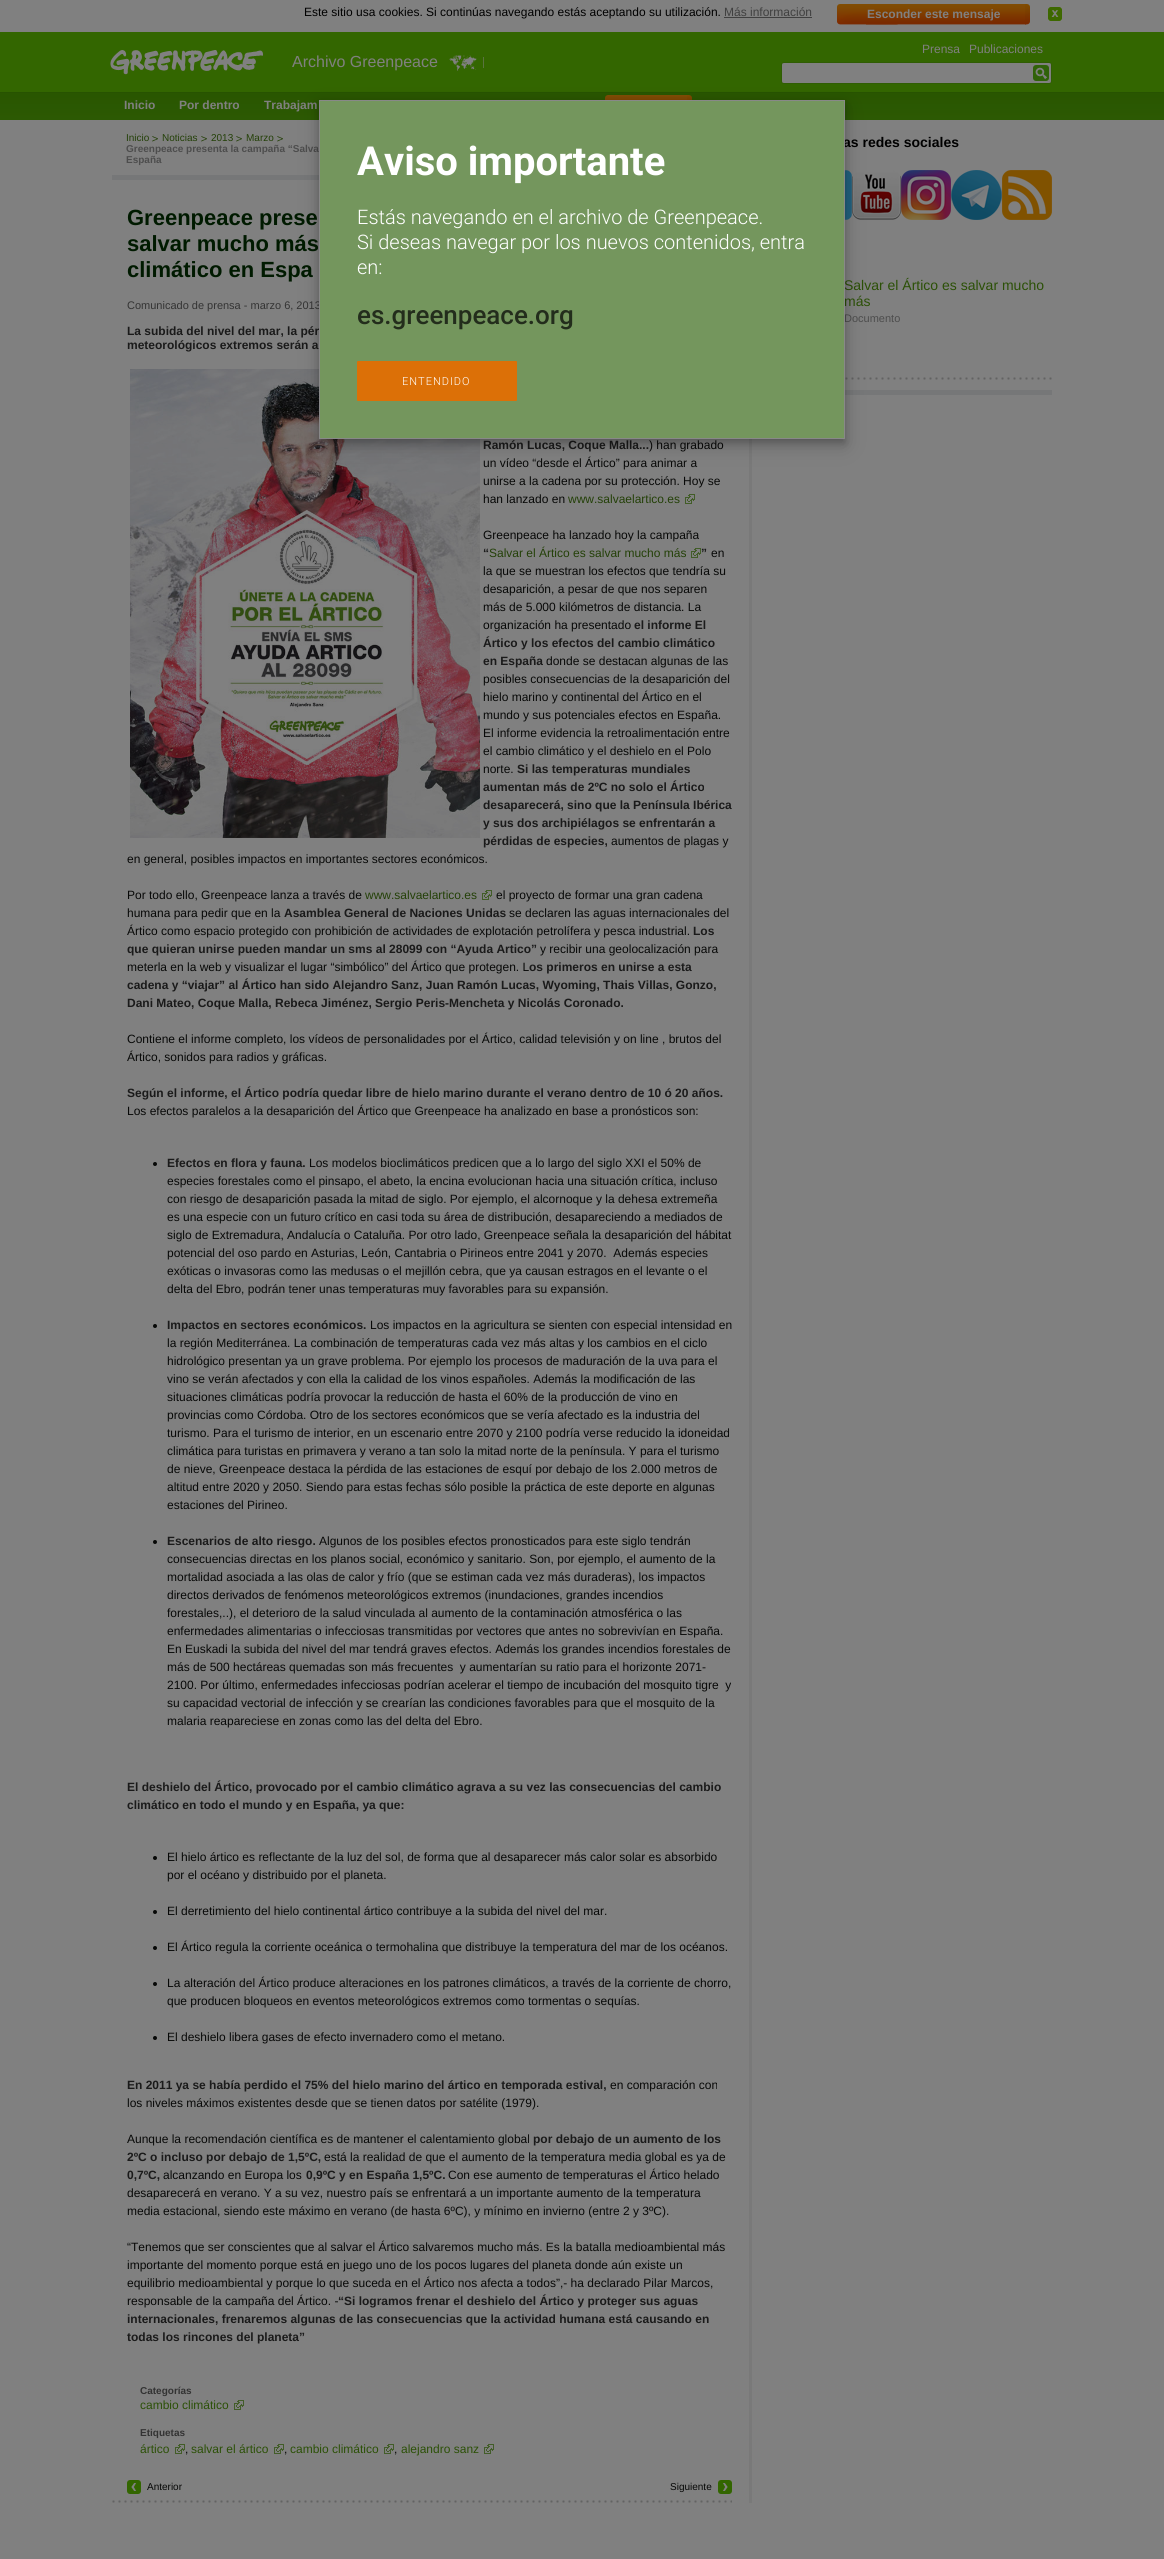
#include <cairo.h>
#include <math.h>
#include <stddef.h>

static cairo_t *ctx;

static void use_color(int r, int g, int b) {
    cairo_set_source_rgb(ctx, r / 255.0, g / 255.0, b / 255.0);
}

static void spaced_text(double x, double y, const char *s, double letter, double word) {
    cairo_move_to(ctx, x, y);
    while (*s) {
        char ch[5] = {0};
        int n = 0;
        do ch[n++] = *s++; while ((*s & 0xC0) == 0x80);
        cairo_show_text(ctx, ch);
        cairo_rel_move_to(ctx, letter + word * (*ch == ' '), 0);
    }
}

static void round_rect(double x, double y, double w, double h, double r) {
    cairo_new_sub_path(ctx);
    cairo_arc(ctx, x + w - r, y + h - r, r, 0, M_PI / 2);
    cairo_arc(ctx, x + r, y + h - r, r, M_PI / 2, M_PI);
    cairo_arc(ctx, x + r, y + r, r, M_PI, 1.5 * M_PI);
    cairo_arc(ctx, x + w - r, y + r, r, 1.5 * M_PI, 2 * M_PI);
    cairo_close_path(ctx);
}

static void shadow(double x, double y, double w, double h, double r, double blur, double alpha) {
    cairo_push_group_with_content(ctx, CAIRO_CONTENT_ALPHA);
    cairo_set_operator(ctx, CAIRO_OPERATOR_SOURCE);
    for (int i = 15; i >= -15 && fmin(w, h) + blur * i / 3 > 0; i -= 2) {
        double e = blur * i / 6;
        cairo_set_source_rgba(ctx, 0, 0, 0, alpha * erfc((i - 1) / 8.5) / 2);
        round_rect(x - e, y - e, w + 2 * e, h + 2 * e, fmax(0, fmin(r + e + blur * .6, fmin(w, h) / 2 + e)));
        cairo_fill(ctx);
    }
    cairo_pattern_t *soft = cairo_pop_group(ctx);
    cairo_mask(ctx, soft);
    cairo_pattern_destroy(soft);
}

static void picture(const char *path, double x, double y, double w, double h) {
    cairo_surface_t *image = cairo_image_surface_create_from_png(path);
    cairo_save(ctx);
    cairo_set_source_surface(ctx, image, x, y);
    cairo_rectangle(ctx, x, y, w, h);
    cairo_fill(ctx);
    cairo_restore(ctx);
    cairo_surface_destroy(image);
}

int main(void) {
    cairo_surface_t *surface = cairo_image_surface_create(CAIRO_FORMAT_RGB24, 1164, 2559);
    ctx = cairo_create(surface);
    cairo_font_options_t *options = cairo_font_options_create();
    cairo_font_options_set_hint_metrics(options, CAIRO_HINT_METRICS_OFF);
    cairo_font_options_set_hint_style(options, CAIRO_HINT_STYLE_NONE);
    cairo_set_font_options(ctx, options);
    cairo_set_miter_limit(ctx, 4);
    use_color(128, 128, 128);
    cairo_paint(ctx);
    picture("img1.png", 0, 32, 1164, 88);
    cairo_select_font_face(ctx, "Liberation Sans", CAIRO_FONT_SLANT_NORMAL, CAIRO_FONT_WEIGHT_NORMAL);
    cairo_set_font_size(ctx, 12);
    use_color(0, 0, 0);
    cairo_move_to(ctx, 304, 16);
    cairo_show_text(ctx, "Este sitio usa cookies. Si continúas navegando estás aceptando su utilización.");
    use_color(64, 64, 64);
    cairo_move_to(ctx, 724, 16);
    cairo_show_text(ctx, "Más información");
    cairo_rectangle(ctx, 724, 17, 88, 1);
    cairo_fill(ctx);
    picture("img2.png", 837, 4, 189, 21);
    picture("img3.png", 1025, 4, 5, 21);
    cairo_select_font_face(ctx, "Liberation Sans", CAIRO_FONT_SLANT_NORMAL, CAIRO_FONT_WEIGHT_BOLD);
    use_color(128, 128, 128);
    cairo_move_to(ctx, 867, 18);
    cairo_show_text(ctx, "Esconder este mensaje");
    picture("img4.png", 1048, 7, 14, 14);
    picture("img5.png", 110, 50, 153, 25);
    cairo_select_font_face(ctx, "Liberation Sans", CAIRO_FONT_SLANT_NORMAL, CAIRO_FONT_WEIGHT_NORMAL);
    cairo_move_to(ctx, 922, 53);
    cairo_show_text(ctx, "Prensa");
    cairo_move_to(ctx, 969, 53);
    cairo_show_text(ctx, "Publicaciones");
    picture("img6.png", 781, 62, 271, 22);
    picture("img7.png", 1033, 65, 16, 16);
    cairo_set_font_size(ctx, 16);
    cairo_move_to(ctx, 292, 67);
    cairo_show_text(ctx, "Archivo Greenpeace");
    picture("img8.png", 449, 55, 35, 16);
    picture("img9.png", 605, 95, 82, 5);
    picture("img10.png", 687, 95, 5, 5);
    cairo_select_font_face(ctx, "Liberation Sans", CAIRO_FONT_SLANT_NORMAL, CAIRO_FONT_WEIGHT_BOLD);
    cairo_set_font_size(ctx, 12);
    cairo_move_to(ctx, 124, 109);
    cairo_show_text(ctx, "Inicio");
    cairo_move_to(ctx, 179, 109);
    cairo_show_text(ctx, "Por dentro");
    cairo_move_to(ctx, 264, 109);
    cairo_show_text(ctx, "Trabajam");
    use_color(121, 121, 121);
    cairo_rectangle(ctx, 749, 439, 3, 2064);
    cairo_fill(ctx);
    cairo_select_font_face(ctx, "Liberation Sans", CAIRO_FONT_SLANT_NORMAL, CAIRO_FONT_WEIGHT_NORMAL);
    cairo_set_font_size(ctx, 10);
    use_color(35, 64, 7);
    cairo_move_to(ctx, 126, 141);
    cairo_show_text(ctx, "Inicio");
    picture("img11.png", 152, 136, 6, 6);
    cairo_move_to(ctx, 162, 141);
    cairo_show_text(ctx, "Noticias");
    picture("img11.png", 201, 136, 6, 6);
    cairo_move_to(ctx, 211, 141);
    cairo_show_text(ctx, "2013");
    picture("img11.png", 236, 136, 6, 6);
    cairo_move_to(ctx, 246, 141);
    cairo_show_text(ctx, "Marzo");
    picture("img11.png", 277, 136, 6, 6);
    cairo_select_font_face(ctx, "Liberation Sans", CAIRO_FONT_SLANT_NORMAL, CAIRO_FONT_WEIGHT_BOLD);
    use_color(77, 77, 77);
    cairo_move_to(ctx, 126, 152);
    cairo_show_text(ctx, "Greenpeace presenta la campaña “Salva");
    cairo_move_to(ctx, 126, 163);
    cairo_show_text(ctx, "España");
    use_color(118, 119, 120);
    cairo_rectangle(ctx, 112, 175, 207, 5);
    cairo_fill(ctx);
    cairo_set_font_size(ctx, 22);
    use_color(0, 26, 0);
    cairo_move_to(ctx, 127, 225);
    cairo_show_text(ctx, "Greenpeace prese");
    cairo_move_to(ctx, 127, 251);
    cairo_show_text(ctx, "salvar mucho más");
    cairo_move_to(ctx, 127, 277);
    cairo_show_text(ctx, "climático en Espa");
    cairo_select_font_face(ctx, "Liberation Sans", CAIRO_FONT_SLANT_NORMAL, CAIRO_FONT_WEIGHT_NORMAL);
    cairo_set_font_size(ctx, 11);
    use_color(51, 51, 51);
    cairo_move_to(ctx, 127, 309);
    cairo_show_text(ctx, "Comunicado de prensa - marzo 6, 2013");
    cairo_select_font_face(ctx, "Liberation Sans", CAIRO_FONT_SLANT_NORMAL, CAIRO_FONT_WEIGHT_BOLD);
    cairo_set_font_size(ctx, 12);
    use_color(26, 26, 26);
    cairo_move_to(ctx, 127, 335);
    cairo_show_text(ctx, "La subida del nivel del mar, la pér");
    cairo_move_to(ctx, 127, 349);
    cairo_show_text(ctx, "meteorológicos extremos serán a");
    picture("img12.png", 130, 369, 350, 469);
    cairo_move_to(ctx, 483, 449);
    cairo_show_text(ctx, "Ramón Lucas, Coque Malla...");
    cairo_select_font_face(ctx, "Liberation Sans", CAIRO_FONT_SLANT_NORMAL, CAIRO_FONT_WEIGHT_NORMAL);
    use_color(7, 8, 7);
    cairo_move_to(ctx, 649, 449);
    cairo_show_text(ctx, ") han grabado");
    cairo_move_to(ctx, 483, 467);
    cairo_show_text(ctx, "un vídeo “desde el Ártico” para animar a");
    cairo_move_to(ctx, 483, 485);
    cairo_show_text(ctx, "unirse a la cadena por su protección. Hoy se");
    cairo_move_to(ctx, 483, 503);
    cairo_show_text(ctx, "han lanzado en");
    use_color(35, 64, 7);
    cairo_move_to(ctx, 568, 503);
    cairo_show_text(ctx, "www.salvaelartico.es");
    picture("img13.png", 685, 494, 10, 10);
    use_color(7, 8, 7);
    cairo_move_to(ctx, 483, 539);
    cairo_show_text(ctx, "Greenpeace ha lanzado hoy la campaña");
    cairo_select_font_face(ctx, "Liberation Sans", CAIRO_FONT_SLANT_NORMAL, CAIRO_FONT_WEIGHT_BOLD);
    use_color(26, 26, 26);
    cairo_move_to(ctx, 483, 557);
    cairo_show_text(ctx, "“");
    cairo_select_font_face(ctx, "Liberation Sans", CAIRO_FONT_SLANT_NORMAL, CAIRO_FONT_WEIGHT_NORMAL);
    use_color(35, 64, 7);
    cairo_move_to(ctx, 489, 557);
    cairo_show_text(ctx, "Salvar el Ártico es salvar mucho más");
    picture("img13.png", 691, 548, 10, 10);
    cairo_select_font_face(ctx, "Liberation Sans", CAIRO_FONT_SLANT_NORMAL, CAIRO_FONT_WEIGHT_BOLD);
    use_color(26, 26, 26);
    cairo_move_to(ctx, 701, 557);
    cairo_show_text(ctx, "”");
    cairo_select_font_face(ctx, "Liberation Sans", CAIRO_FONT_SLANT_NORMAL, CAIRO_FONT_WEIGHT_NORMAL);
    use_color(7, 8, 7);
    cairo_move_to(ctx, 711, 557);
    cairo_show_text(ctx, "en");
    cairo_move_to(ctx, 483, 575);
    cairo_show_text(ctx, "la que se muestran los efectos que tendría su");
    cairo_move_to(ctx, 483, 593);
    cairo_show_text(ctx, "desaparición, a pesar de que nos separen");
    cairo_move_to(ctx, 483, 611);
    cairo_show_text(ctx, "más de 5.000 kilómetros de distancia. La");
    cairo_move_to(ctx, 483, 629);
    cairo_show_text(ctx, "organización ha presentado");
    cairo_select_font_face(ctx, "Liberation Sans", CAIRO_FONT_SLANT_NORMAL, CAIRO_FONT_WEIGHT_BOLD);
    use_color(26, 26, 26);
    cairo_move_to(ctx, 634, 629);
    cairo_show_text(ctx, "el informe El");
    cairo_move_to(ctx, 483, 647);
    cairo_show_text(ctx, "Ártico y los efectos del cambio climático");
    cairo_move_to(ctx, 483, 665);
    cairo_show_text(ctx, "en España");
    cairo_select_font_face(ctx, "Liberation Sans", CAIRO_FONT_SLANT_NORMAL, CAIRO_FONT_WEIGHT_NORMAL);
    use_color(7, 8, 7);
    cairo_move_to(ctx, 546, 665);
    cairo_show_text(ctx, "donde se destacan algunas de las");
    cairo_move_to(ctx, 483, 683);
    cairo_show_text(ctx, "posibles consecuencias de la desaparición del");
    cairo_move_to(ctx, 483, 701);
    cairo_show_text(ctx, "hielo marino y continental del Ártico en el");
    cairo_move_to(ctx, 483, 719);
    cairo_show_text(ctx, "mundo y sus potenciales efectos en España.");
    cairo_move_to(ctx, 483, 737);
    cairo_show_text(ctx, "El informe evidencia la retroalimentación entre");
    cairo_move_to(ctx, 483, 755);
    cairo_show_text(ctx, "el cambio climático y el deshielo en el Polo");
    cairo_move_to(ctx, 483, 773);
    cairo_show_text(ctx, "norte.");
    cairo_select_font_face(ctx, "Liberation Sans", CAIRO_FONT_SLANT_NORMAL, CAIRO_FONT_WEIGHT_BOLD);
    use_color(26, 26, 26);
    cairo_move_to(ctx, 517, 773);
    cairo_show_text(ctx, "Si las temperaturas mundiales");
    cairo_move_to(ctx, 483, 791);
    cairo_show_text(ctx, "aumentan más de 2ºC no solo el Ártico");
    cairo_move_to(ctx, 483, 809);
    cairo_show_text(ctx, "desaparecerá, sino que la Península Ibérica");
    cairo_move_to(ctx, 483, 827);
    cairo_show_text(ctx, "y sus dos archipiélagos se enfrentarán a");
    cairo_move_to(ctx, 483, 845);
    cairo_show_text(ctx, "pérdidas de especies,");
    cairo_select_font_face(ctx, "Liberation Sans", CAIRO_FONT_SLANT_NORMAL, CAIRO_FONT_WEIGHT_NORMAL);
    use_color(7, 8, 7);
    cairo_move_to(ctx, 611, 845);
    cairo_show_text(ctx, "aumentos de plagas y");
    cairo_move_to(ctx, 127, 863);
    cairo_show_text(ctx, "en general, posibles impactos en importantes sectores económicos.");
    cairo_move_to(ctx, 127, 899);
    cairo_show_text(ctx, "Por todo ello, Greenpeace lanza a través de");
    use_color(35, 64, 7);
    cairo_move_to(ctx, 365, 899);
    cairo_show_text(ctx, "www.salvaelartico.es");
    picture("img13.png", 482, 890, 10, 10);
    use_color(7, 8, 7);
    cairo_move_to(ctx, 496, 899);
    cairo_show_text(ctx, "el proyecto de formar una gran cadena");
    cairo_move_to(ctx, 127, 917);
    cairo_show_text(ctx, "humana para pedir que en la");
    cairo_select_font_face(ctx, "Liberation Sans", CAIRO_FONT_SLANT_NORMAL, CAIRO_FONT_WEIGHT_BOLD);
    use_color(26, 26, 26);
    cairo_move_to(ctx, 284, 917);
    cairo_show_text(ctx, "Asamblea General de Naciones Unidas");
    cairo_select_font_face(ctx, "Liberation Sans", CAIRO_FONT_SLANT_NORMAL, CAIRO_FONT_WEIGHT_NORMAL);
    use_color(7, 8, 7);
    cairo_move_to(ctx, 509, 917);
    cairo_show_text(ctx, "se declaren las aguas internacionales del");
    cairo_move_to(ctx, 127, 935);
    cairo_show_text(ctx, "Ártico como espacio protegido con prohibición de actividades de explotación petrolífera y pesca industrial.");
    cairo_select_font_face(ctx, "Liberation Sans", CAIRO_FONT_SLANT_NORMAL, CAIRO_FONT_WEIGHT_BOLD);
    use_color(26, 26, 26);
    cairo_move_to(ctx, 693, 935);
    cairo_show_text(ctx, "Los");
    cairo_move_to(ctx, 127, 953);
    cairo_show_text(ctx, "que quieran unirse pueden mandar un sms al 28099 con “Ayuda Artico”");
    cairo_select_font_face(ctx, "Liberation Sans", CAIRO_FONT_SLANT_NORMAL, CAIRO_FONT_WEIGHT_NORMAL);
    use_color(7, 8, 7);
    cairo_move_to(ctx, 540, 953);
    cairo_show_text(ctx, "y recibir una geolocalización para");
    cairo_move_to(ctx, 127, 971);
    cairo_show_text(ctx, "meterla en la web y visualizar el lugar “simbólico” del Ártico que protegen. L");
    cairo_select_font_face(ctx, "Liberation Sans", CAIRO_FONT_SLANT_NORMAL, CAIRO_FONT_WEIGHT_BOLD);
    use_color(26, 26, 26);
    cairo_move_to(ctx, 529, 971);
    cairo_show_text(ctx, "os primeros en unirse a esta");
    cairo_move_to(ctx, 127, 989);
    cairo_show_text(ctx, "cadena y “viajar” al Ártico han sido Alejandro Sanz, Juan Ramón Lucas, Wyoming, Thais Villas, Gonzo,");
    cairo_move_to(ctx, 127, 1007);
    cairo_show_text(ctx, "Dani Mateo, Coque Malla, Rebeca Jiménez, Sergio Peris-Mencheta y Nicolás Coronado.");
    cairo_select_font_face(ctx, "Liberation Sans", CAIRO_FONT_SLANT_NORMAL, CAIRO_FONT_WEIGHT_NORMAL);
    use_color(7, 8, 7);
    cairo_move_to(ctx, 127, 1043);
    cairo_show_text(ctx, "Contiene el informe completo, los vídeos de personalidades por el Ártico, calidad televisión y on line , brutos del");
    cairo_move_to(ctx, 127, 1061);
    cairo_show_text(ctx, "Ártico, sonidos para radios y gráficas.");
    cairo_select_font_face(ctx, "Liberation Sans", CAIRO_FONT_SLANT_NORMAL, CAIRO_FONT_WEIGHT_BOLD);
    use_color(26, 26, 26);
    cairo_move_to(ctx, 127, 1097);
    cairo_show_text(ctx, "Según el informe, el Ártico podría quedar libre de hielo marino durante el verano dentro de 10 ó 20 años.");
    cairo_select_font_face(ctx, "Liberation Sans", CAIRO_FONT_SLANT_NORMAL, CAIRO_FONT_WEIGHT_NORMAL);
    use_color(7, 8, 7);
    cairo_move_to(ctx, 127, 1115);
    cairo_show_text(ctx, "Los efectos paralelos a la desaparición del Ártico que Greenpeace ha analizado en base a pronósticos son:");
    cairo_new_path(ctx);
    cairo_arc(ctx, 155, 1164, 2, 0, 2 * M_PI);
    cairo_fill(ctx);
    cairo_select_font_face(ctx, "Liberation Sans", CAIRO_FONT_SLANT_NORMAL, CAIRO_FONT_WEIGHT_BOLD);
    use_color(26, 26, 26);
    cairo_move_to(ctx, 167, 1167);
    cairo_show_text(ctx, "Efectos en flora y fauna.");
    cairo_select_font_face(ctx, "Liberation Sans", CAIRO_FONT_SLANT_NORMAL, CAIRO_FONT_WEIGHT_NORMAL);
    use_color(7, 8, 7);
    cairo_move_to(ctx, 309, 1167);
    cairo_show_text(ctx, "Los modelos bioclimáticos predicen que a lo largo del siglo XXI el 50% de");
    cairo_move_to(ctx, 167, 1185);
    cairo_show_text(ctx, "especies forestales como el pinsapo, el abeto, la encina evolucionan hacia una situación crítica, incluso");
    cairo_move_to(ctx, 167, 1203);
    cairo_show_text(ctx, "con riesgo de desaparición pasada la mitad de siglo. Por ejemplo, el alcornoque y la dehesa extremeña");
    cairo_move_to(ctx, 167, 1221);
    cairo_show_text(ctx, "es una especie con un futuro crítico en casi toda su área de distribución, desapareciendo a mediados de");
    cairo_move_to(ctx, 167, 1239);
    cairo_show_text(ctx, "siglo de Extremadura, Andalucía o Cataluña. Por otro lado, Greenpeace señala la desaparición del hábitat");
    cairo_move_to(ctx, 167, 1257);
    cairo_show_text(ctx, "potencial del oso pardo en Asturias, León, Cantabria o Pirineos entre 2041 y 2070.  Además especies");
    cairo_move_to(ctx, 167, 1275);
    cairo_show_text(ctx, "exóticas o invasoras como las medusas o el mejillón cebra, que ya causan estragos en el levante o el");
    cairo_move_to(ctx, 167, 1293);
    cairo_show_text(ctx, "delta del Ebro, podrán tener unas temperaturas muy favorables para su expansión.");
    cairo_new_path(ctx);
    cairo_arc(ctx, 155, 1326, 2, 0, 2 * M_PI);
    cairo_fill(ctx);
    cairo_select_font_face(ctx, "Liberation Sans", CAIRO_FONT_SLANT_NORMAL, CAIRO_FONT_WEIGHT_BOLD);
    use_color(26, 26, 26);
    cairo_move_to(ctx, 167, 1329);
    cairo_show_text(ctx, "Impactos en sectores económicos.");
    cairo_select_font_face(ctx, "Liberation Sans", CAIRO_FONT_SLANT_NORMAL, CAIRO_FONT_WEIGHT_NORMAL);
    use_color(7, 8, 7);
    cairo_move_to(ctx, 370, 1329);
    cairo_show_text(ctx, "Los impactos en la agricultura se sienten con especial intensidad en");
    cairo_move_to(ctx, 167, 1347);
    cairo_show_text(ctx, "la región Mediterránea. La combinación de temperaturas cada vez más altas y los cambios en el ciclo");
    cairo_move_to(ctx, 167, 1365);
    cairo_show_text(ctx, "hidrológico presentan ya un grave problema. Por ejemplo los procesos de maduración de la uva para el");
    cairo_move_to(ctx, 167, 1383);
    cairo_show_text(ctx, "vino se verán afectados y con ella la calidad de los vinos españoles. Además la modificación de las");
    cairo_move_to(ctx, 167, 1401);
    cairo_show_text(ctx, "situaciones climáticas podría provocar la reducción de hasta el 60% de la producción de vino en");
    cairo_move_to(ctx, 167, 1419);
    cairo_show_text(ctx, "provincias como Córdoba. Otro de los sectores económicos que se vería afectado es la industria del");
    cairo_move_to(ctx, 167, 1437);
    cairo_show_text(ctx, "turismo. Para el turismo de interior, en un escenario entre 2070 y 2100 podría verse reducido la idoneidad");
    cairo_move_to(ctx, 167, 1455);
    cairo_show_text(ctx, "climática para turistas en primavera y verano a tan solo la mitad norte de la península. Y para el turismo");
    cairo_move_to(ctx, 167, 1473);
    cairo_show_text(ctx, "de nieve, Greenpeace destaca la pérdida de las estaciones de esquí por debajo de los 2.000 metros de");
    cairo_move_to(ctx, 167, 1491);
    cairo_show_text(ctx, "altitud entre 2020 y 2050. Siendo para estas fechas sólo posible la práctica de este deporte en algunas");
    cairo_move_to(ctx, 167, 1509);
    cairo_show_text(ctx, "estaciones del Pirineo.");
    cairo_new_path(ctx);
    cairo_arc(ctx, 155, 1542, 2, 0, 2 * M_PI);
    cairo_fill(ctx);
    cairo_select_font_face(ctx, "Liberation Sans", CAIRO_FONT_SLANT_NORMAL, CAIRO_FONT_WEIGHT_BOLD);
    use_color(26, 26, 26);
    cairo_move_to(ctx, 167, 1545);
    cairo_show_text(ctx, "Escenarios de alto riesgo.");
    cairo_select_font_face(ctx, "Liberation Sans", CAIRO_FONT_SLANT_NORMAL, CAIRO_FONT_WEIGHT_NORMAL);
    use_color(7, 8, 7);
    cairo_move_to(ctx, 319, 1545);
    cairo_show_text(ctx, "Algunos de los posibles efectos pronosticados para este siglo tendrán");
    cairo_move_to(ctx, 167, 1563);
    cairo_show_text(ctx, "consecuencias directas en los planos social, económico y sanitario. Son, por ejemplo, el aumento de la");
    cairo_move_to(ctx, 167, 1581);
    cairo_show_text(ctx, "mortalidad asociada a las olas de calor y frío (que se estiman cada vez más duraderas), los impactos");
    cairo_move_to(ctx, 167, 1599);
    cairo_show_text(ctx, "directos derivados de fenómenos meteorológicos extremos (inundaciones, grandes incendios");
    cairo_move_to(ctx, 167, 1617);
    cairo_show_text(ctx, "forestales,..), el deterioro de la salud vinculada al aumento de la contaminación atmosférica o las");
    cairo_move_to(ctx, 167, 1635);
    cairo_show_text(ctx, "enfermedades alimentarias o infecciosas transmitidas por vectores que antes no sobrevivían en España.");
    cairo_move_to(ctx, 167, 1653);
    cairo_show_text(ctx, "En Euskadi la subida del nivel del mar tendrá graves efectos. Además los grandes incendios forestales de");
    cairo_move_to(ctx, 167, 1671);
    cairo_show_text(ctx, "más de 500 hectáreas quemadas son más frecuentes  y aumentarían su ratio para el horizonte 2071-");
    cairo_move_to(ctx, 167, 1689);
    cairo_show_text(ctx, "2100. Por último, enfermedades infecciosas podrían acelerar el tiempo de incubación del mosquito tigre  y");
    cairo_move_to(ctx, 167, 1707);
    cairo_show_text(ctx, "su capacidad vectorial de infección y se crearían las condiciones favorables para que el mosquito de la");
    cairo_move_to(ctx, 167, 1725);
    cairo_show_text(ctx, "malaria reapareciese en zonas como las del delta del Ebro.");
    cairo_select_font_face(ctx, "Liberation Sans", CAIRO_FONT_SLANT_NORMAL, CAIRO_FONT_WEIGHT_BOLD);
    use_color(26, 26, 26);
    cairo_move_to(ctx, 127, 1791);
    cairo_show_text(ctx, "El deshielo del Ártico, provocado por el cambio climático agrava a su vez las consecuencias del cambio");
    cairo_move_to(ctx, 127, 1809);
    cairo_show_text(ctx, "climático en todo el mundo y en España, ya que:");
    use_color(7, 8, 7);
    cairo_new_path(ctx);
    cairo_arc(ctx, 155, 1858, 2, 0, 2 * M_PI);
    cairo_fill(ctx);
    cairo_select_font_face(ctx, "Liberation Sans", CAIRO_FONT_SLANT_NORMAL, CAIRO_FONT_WEIGHT_NORMAL);
    cairo_move_to(ctx, 167, 1861);
    cairo_show_text(ctx, "El hielo ártico es reflectante de la luz del sol, de forma que al desaparecer más calor solar es absorbido");
    cairo_move_to(ctx, 167, 1879);
    cairo_show_text(ctx, "por el océano y distribuido por el planeta.");
    cairo_new_path(ctx);
    cairo_arc(ctx, 155, 1912, 2, 0, 2 * M_PI);
    cairo_fill(ctx);
    cairo_move_to(ctx, 167, 1915);
    cairo_show_text(ctx, "El derretimiento del hielo continental ártico contribuye a la subida del nivel del mar.");
    cairo_new_path(ctx);
    cairo_arc(ctx, 155, 1948, 2, 0, 2 * M_PI);
    cairo_fill(ctx);
    cairo_move_to(ctx, 167, 1951);
    cairo_show_text(ctx, "El Ártico regula la corriente oceánica o termohalina que distribuye la temperatura del mar de los océanos.");
    cairo_new_path(ctx);
    cairo_arc(ctx, 155, 1984, 2, 0, 2 * M_PI);
    cairo_fill(ctx);
    cairo_move_to(ctx, 167, 1987);
    cairo_show_text(ctx, "La alteración del Ártico produce alteraciones en los patrones climáticos, a través de la corriente de chorro,");
    cairo_move_to(ctx, 167, 2005);
    cairo_show_text(ctx, "que producen bloqueos en eventos meteorológicos extremos como tormentas o sequías.");
    cairo_new_path(ctx);
    cairo_arc(ctx, 155, 2038, 2, 0, 2 * M_PI);
    cairo_fill(ctx);
    cairo_move_to(ctx, 167, 2041);
    cairo_show_text(ctx, "El deshielo libera gases de efecto invernadero como el metano.");
    cairo_select_font_face(ctx, "Liberation Sans", CAIRO_FONT_SLANT_NORMAL, CAIRO_FONT_WEIGHT_BOLD);
    use_color(26, 26, 26);
    cairo_move_to(ctx, 127, 2089);
    cairo_show_text(ctx, "En 2011 ya se había perdido el 75% del hielo marino del ártico en temporada estival,");
    cairo_select_font_face(ctx, "Liberation Sans", CAIRO_FONT_SLANT_NORMAL, CAIRO_FONT_WEIGHT_NORMAL);
    use_color(7, 8, 7);
    cairo_move_to(ctx, 610, 2089);
    cairo_show_text(ctx, "en comparación con");
    cairo_move_to(ctx, 127, 2107);
    cairo_show_text(ctx, "los niveles máximos existentes desde que se tienen datos por satélite (1979).");
    cairo_move_to(ctx, 127, 2143);
    cairo_show_text(ctx, "Aunque la recomendación científica es de mantener el calentamiento global");
    cairo_select_font_face(ctx, "Liberation Sans", CAIRO_FONT_SLANT_NORMAL, CAIRO_FONT_WEIGHT_BOLD);
    use_color(26, 26, 26);
    cairo_move_to(ctx, 533, 2143);
    cairo_show_text(ctx, "por debajo de un aumento de los");
    cairo_move_to(ctx, 127, 2161);
    cairo_show_text(ctx, "2ºC o incluso por debajo de 1,5ºC,");
    cairo_select_font_face(ctx, "Liberation Sans", CAIRO_FONT_SLANT_NORMAL, CAIRO_FONT_WEIGHT_NORMAL);
    use_color(7, 8, 7);
    cairo_move_to(ctx, 324, 2161);
    cairo_show_text(ctx, "está la realidad de que el aumento de la temperatura media global es ya de");
    cairo_select_font_face(ctx, "Liberation Sans", CAIRO_FONT_SLANT_NORMAL, CAIRO_FONT_WEIGHT_BOLD);
    use_color(26, 26, 26);
    cairo_move_to(ctx, 127, 2179);
    cairo_show_text(ctx, "0,7ºC,");
    cairo_select_font_face(ctx, "Liberation Sans", CAIRO_FONT_SLANT_NORMAL, CAIRO_FONT_WEIGHT_NORMAL);
    use_color(7, 8, 7);
    cairo_move_to(ctx, 163, 2179);
    cairo_show_text(ctx, "alcanzando en Europa los");
    cairo_select_font_face(ctx, "Liberation Sans", CAIRO_FONT_SLANT_NORMAL, CAIRO_FONT_WEIGHT_BOLD);
    use_color(26, 26, 26);
    cairo_move_to(ctx, 306, 2179);
    cairo_show_text(ctx, "0,9ºC y en España 1,5ºC.");
    cairo_select_font_face(ctx, "Liberation Sans", CAIRO_FONT_SLANT_NORMAL, CAIRO_FONT_WEIGHT_NORMAL);
    use_color(7, 8, 7);
    cairo_move_to(ctx, 448, 2179);
    cairo_show_text(ctx, "Con ese aumento de temperaturas el Ártico helado");
    cairo_move_to(ctx, 127, 2197);
    cairo_show_text(ctx, "desaparecerá en verano. Y a su vez, nuestro país se enfrentará a un importante aumento de la temperatura");
    cairo_move_to(ctx, 127, 2215);
    cairo_show_text(ctx, "media estacional, siendo este máximo en verano (de hasta 6ºC), y mínimo en invierno (entre 2 y 3ºC).");
    cairo_move_to(ctx, 127, 2251);
    cairo_show_text(ctx, "“Tenemos que ser conscientes que al salvar el Ártico salvaremos mucho más. Es la batalla medioambiental más");
    cairo_move_to(ctx, 127, 2269);
    cairo_show_text(ctx, "importante del momento porque está en juego uno de los pocos lugares del planeta donde aún existe un");
    cairo_move_to(ctx, 127, 2287);
    cairo_show_text(ctx, "equilibrio medioambiental y porque lo que suceda en el Ártico nos afecta a todos”,- ha declarado Pilar Marcos,");
    cairo_move_to(ctx, 127, 2305);
    cairo_show_text(ctx, "responsable de la campaña del Ártico. -");
    cairo_select_font_face(ctx, "Liberation Sans", CAIRO_FONT_SLANT_NORMAL, CAIRO_FONT_WEIGHT_BOLD);
    use_color(26, 26, 26);
    cairo_move_to(ctx, 338, 2305);
    cairo_show_text(ctx, "“Si logramos frenar el deshielo del Ártico y proteger sus aguas");
    cairo_move_to(ctx, 127, 2323);
    cairo_show_text(ctx, "internacionales, frenaremos algunas de las consecuencias que la actividad humana está causando en");
    cairo_move_to(ctx, 127, 2341);
    cairo_show_text(ctx, "todas los rincones del planeta”");
    cairo_set_font_size(ctx, 10);
    use_color(51, 51, 51);
    cairo_move_to(ctx, 140, 2394);
    cairo_show_text(ctx, "Categorías");
    cairo_select_font_face(ctx, "Liberation Sans", CAIRO_FONT_SLANT_NORMAL, CAIRO_FONT_WEIGHT_NORMAL);
    cairo_set_font_size(ctx, 12);
    use_color(43, 80, 6);
    cairo_move_to(ctx, 140, 2409);
    cairo_show_text(ctx, "cambio climático");
    picture("img13.png", 234, 2400, 10, 10);
    cairo_select_font_face(ctx, "Liberation Sans", CAIRO_FONT_SLANT_NORMAL, CAIRO_FONT_WEIGHT_BOLD);
    cairo_set_font_size(ctx, 10);
    use_color(51, 51, 51);
    cairo_move_to(ctx, 140, 2436);
    cairo_show_text(ctx, "Etiquetas");
    cairo_select_font_face(ctx, "Liberation Sans", CAIRO_FONT_SLANT_NORMAL, CAIRO_FONT_WEIGHT_NORMAL);
    cairo_set_font_size(ctx, 12);
    use_color(43, 80, 6);
    cairo_move_to(ctx, 140, 2453);
    cairo_show_text(ctx, "ártico");
    picture("img13.png", 175, 2444, 10, 10);
    use_color(7, 8, 7);
    cairo_move_to(ctx, 185, 2453);
    cairo_show_text(ctx, ",");
    use_color(43, 80, 6);
    cairo_move_to(ctx, 191, 2453);
    cairo_show_text(ctx, "salvar el ártico");
    picture("img13.png", 274, 2444, 10, 10);
    use_color(7, 8, 7);
    cairo_move_to(ctx, 284, 2453);
    cairo_show_text(ctx, ",");
    use_color(43, 80, 6);
    cairo_move_to(ctx, 290, 2453);
    cairo_show_text(ctx, "cambio climático");
    picture("img13.png", 384, 2444, 10, 10);
    use_color(7, 8, 7);
    cairo_move_to(ctx, 394, 2453);
    cairo_show_text(ctx, ",");
    use_color(43, 80, 6);
    cairo_move_to(ctx, 401, 2453);
    cairo_show_text(ctx, "alejandro sanz");
    picture("img13.png", 484, 2444, 10, 10);
    picture("img14.png", 112, 2500, 620, 3);
    picture("img15.png", 127, 2480, 14, 14);
    cairo_set_font_size(ctx, 10);
    use_color(7, 8, 7);
    cairo_move_to(ctx, 147, 2490);
    cairo_show_text(ctx, "Anterior");
    picture("img16.png", 718, 2480, 14, 14);
    cairo_move_to(ctx, 670, 2490);
    cairo_show_text(ctx, "Siguiente");
    cairo_select_font_face(ctx, "Liberation Sans", CAIRO_FONT_SLANT_NORMAL, CAIRO_FONT_WEIGHT_BOLD);
    cairo_set_font_size(ctx, 14);
    use_color(0, 0, 0);
    cairo_move_to(ctx, 843, 147);
    cairo_show_text(ctx, "as redes sociales");
    picture("img17.png", 845, 170, 207, 50);
    use_color(118, 119, 120);
    cairo_rectangle(ctx, 845, 390, 207, 5);
    cairo_fill(ctx);
    picture("img18.png", 845, 377, 207, 3);
    cairo_select_font_face(ctx, "Liberation Sans", CAIRO_FONT_SLANT_NORMAL, CAIRO_FONT_WEIGHT_NORMAL);
    use_color(43, 80, 6);
    cairo_move_to(ctx, 844, 290);
    cairo_show_text(ctx, "Salvar el Ártico es salvar mucho");
    cairo_move_to(ctx, 844, 306);
    cairo_show_text(ctx, "más");
    cairo_set_font_size(ctx, 11);
    use_color(77, 77, 77);
    cairo_move_to(ctx, 844, 322);
    cairo_show_text(ctx, "Documento");
    use_color(0, 0, 0);
    shadow(319, 106, 526, 339, 0, 10, 0.19);
    shadow(319, 104, 526, 339, 0, 4, 0.2);
    use_color(116, 150, 93);
    cairo_rectangle(ctx, 319.5, 100.5, 525, 338);
    cairo_fill_preserve(ctx);
    use_color(136, 136, 136);
    cairo_set_line_width(ctx, 1);
    cairo_stroke(ctx);
    cairo_select_font_face(ctx, "Roboto", CAIRO_FONT_SLANT_NORMAL, CAIRO_FONT_WEIGHT_BOLD);
    cairo_set_font_size(ctx, 40);
    use_color(255, 255, 255);
    cairo_move_to(ctx, 357, 175);
    cairo_show_text(ctx, "Aviso importante");
    cairo_select_font_face(ctx, "Roboto Light", CAIRO_FONT_SLANT_NORMAL, CAIRO_FONT_WEIGHT_NORMAL);
    cairo_set_font_size(ctx, 20);
    cairo_move_to(ctx, 357, 224);
    cairo_show_text(ctx, "Estás navegando en el archivo de Greenpeace.");
    cairo_move_to(ctx, 357, 249);
    cairo_show_text(ctx, "Si deseas navegar por los nuevos contenidos, entra");
    cairo_move_to(ctx, 357, 274);
    cairo_show_text(ctx, "en:");
    cairo_select_font_face(ctx, "Roboto Medium", CAIRO_FONT_SLANT_NORMAL, CAIRO_FONT_WEIGHT_NORMAL);
    cairo_set_font_size(ctx, 26);
    use_color(35, 45, 28);
    cairo_move_to(ctx, 357, 324);
    cairo_show_text(ctx, "es.greenpeace.org");
    use_color(220, 112, 7);
    round_rect(357, 361, 160, 40, 1);
    cairo_fill(ctx);
    cairo_select_font_face(ctx, "Roboto Light", CAIRO_FONT_SLANT_NORMAL, CAIRO_FONT_WEIGHT_NORMAL);
    cairo_set_font_size(ctx, 11);
    use_color(255, 255, 255);
    spaced_text(402, 385, "ENTENDIDO", 1, 0);
    cairo_surface_write_to_png(surface, "result.png");
    cairo_font_options_destroy(options);
    cairo_destroy(ctx);
    cairo_surface_destroy(surface);
    return 0;
}
